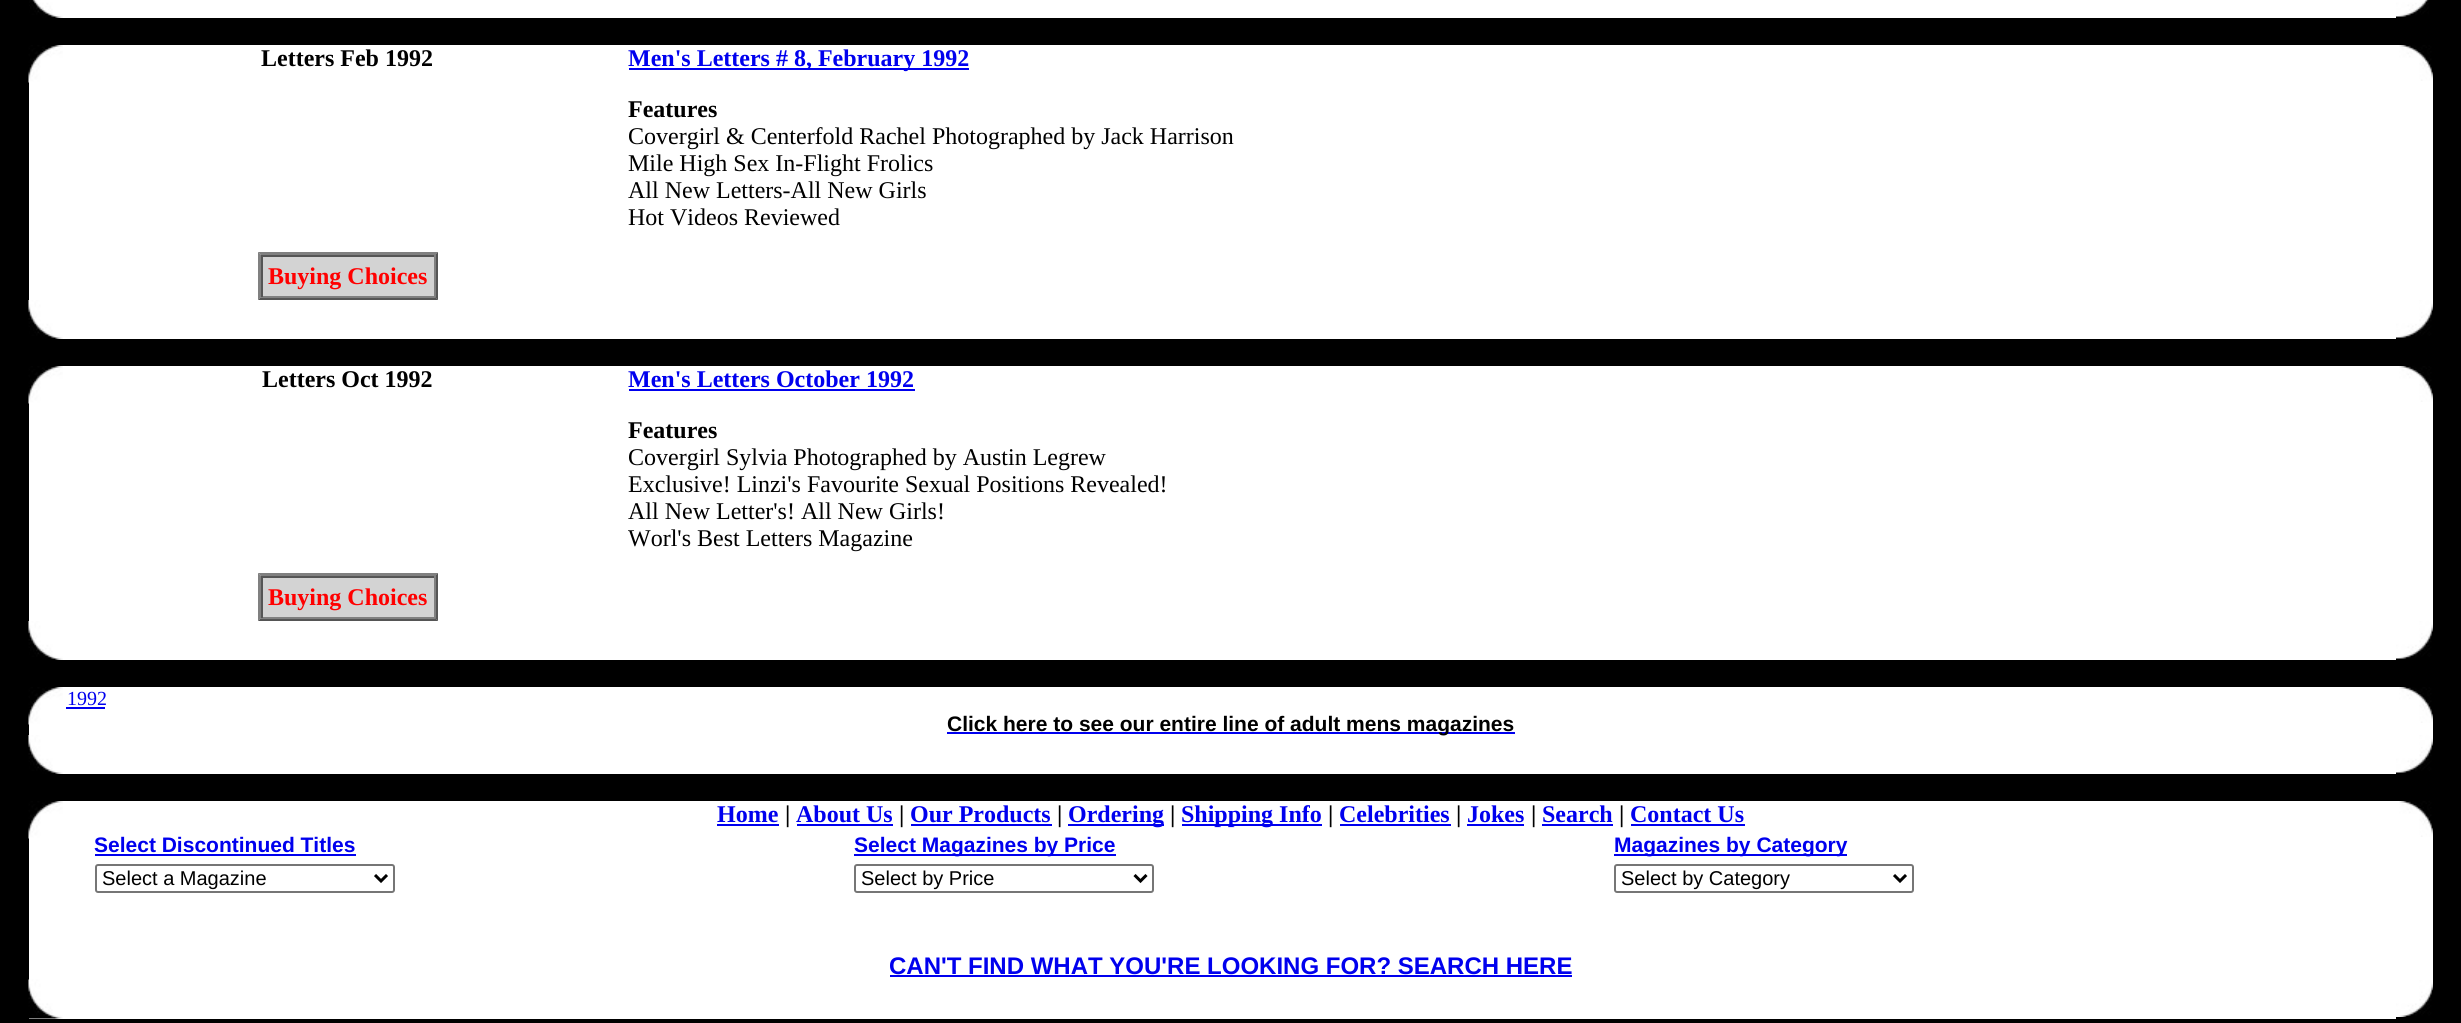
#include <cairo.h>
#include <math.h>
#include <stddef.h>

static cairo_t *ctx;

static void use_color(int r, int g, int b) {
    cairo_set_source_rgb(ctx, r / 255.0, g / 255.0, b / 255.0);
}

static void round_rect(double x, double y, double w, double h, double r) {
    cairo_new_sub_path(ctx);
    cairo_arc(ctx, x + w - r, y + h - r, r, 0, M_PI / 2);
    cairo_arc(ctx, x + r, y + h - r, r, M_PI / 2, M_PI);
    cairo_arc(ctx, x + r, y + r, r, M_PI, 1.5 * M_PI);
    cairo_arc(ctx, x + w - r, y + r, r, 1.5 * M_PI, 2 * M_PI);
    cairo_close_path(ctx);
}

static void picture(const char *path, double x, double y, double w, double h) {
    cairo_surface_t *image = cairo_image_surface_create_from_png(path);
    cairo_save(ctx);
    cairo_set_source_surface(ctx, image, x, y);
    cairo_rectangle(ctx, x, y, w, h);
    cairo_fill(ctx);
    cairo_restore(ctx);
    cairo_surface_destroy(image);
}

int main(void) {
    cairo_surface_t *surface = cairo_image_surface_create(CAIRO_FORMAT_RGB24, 2461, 1023);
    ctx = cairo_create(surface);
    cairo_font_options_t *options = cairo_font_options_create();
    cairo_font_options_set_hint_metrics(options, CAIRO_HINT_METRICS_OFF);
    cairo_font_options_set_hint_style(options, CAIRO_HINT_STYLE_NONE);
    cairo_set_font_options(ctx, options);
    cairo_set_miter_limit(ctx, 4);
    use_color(0, 0, 0);
    cairo_paint(ctx);
    use_color(255, 255, 255);
    cairo_rectangle(ctx, 63, 0, 2333, 18);
    cairo_fill(ctx);
    picture("img1.png", 29, 0, 34, 18);
    picture("img2.png", 2396, 0, 33, 17);
    cairo_rectangle(ctx, 29, 45, 2404, 255);
    cairo_fill(ctx);
    picture("img3.png", 28, 45, 35, 38);
    cairo_select_font_face(ctx, "Liberation Serif", CAIRO_FONT_SLANT_NORMAL, CAIRO_FONT_WEIGHT_BOLD);
    cairo_set_font_size(ctx, 24);
    use_color(0, 0, 0);
    cairo_move_to(ctx, 261, 66);
    cairo_show_text(ctx, "Letters Feb 1992");
    use_color(211, 211, 211);
    cairo_rectangle(ctx, 258, 252, 180, 48);
    cairo_fill(ctx);
    use_color(128, 128, 128);
    cairo_new_path(ctx);
    cairo_move_to(ctx, 258, 252);
    cairo_line_to(ctx, 438, 252);
    cairo_line_to(ctx, 435, 255);
    cairo_line_to(ctx, 261, 255);
    cairo_close_path(ctx);
    cairo_fill(ctx);
    use_color(85, 85, 85);
    cairo_new_path(ctx);
    cairo_move_to(ctx, 438, 252);
    cairo_line_to(ctx, 438, 300);
    cairo_line_to(ctx, 435, 297);
    cairo_line_to(ctx, 435, 255);
    cairo_close_path(ctx);
    cairo_fill(ctx);
    cairo_new_path(ctx);
    cairo_move_to(ctx, 438, 300);
    cairo_line_to(ctx, 258, 300);
    cairo_line_to(ctx, 261, 297);
    cairo_line_to(ctx, 435, 297);
    cairo_close_path(ctx);
    cairo_fill(ctx);
    use_color(128, 128, 128);
    cairo_new_path(ctx);
    cairo_move_to(ctx, 258, 300);
    cairo_line_to(ctx, 258, 252);
    cairo_line_to(ctx, 261, 255);
    cairo_line_to(ctx, 261, 297);
    cairo_close_path(ctx);
    cairo_fill(ctx);
    use_color(85, 85, 85);
    cairo_rectangle(ctx, 261, 255, 174, 2);
    cairo_fill(ctx);
    use_color(128, 128, 128);
    cairo_rectangle(ctx, 434, 255, 2, 42);
    cairo_fill(ctx);
    cairo_rectangle(ctx, 261, 296, 174, 2);
    cairo_fill(ctx);
    use_color(85, 85, 85);
    cairo_rectangle(ctx, 261, 255, 2, 42);
    cairo_fill(ctx);
    use_color(255, 0, 0);
    cairo_move_to(ctx, 268, 284);
    cairo_show_text(ctx, "Buying Choices");
    use_color(0, 0, 238);
    cairo_rectangle(ctx, 629, 68, 340, 2);
    cairo_fill(ctx);
    cairo_move_to(ctx, 628, 66);
    cairo_show_text(ctx, "Men's Letters # 8, February 1992");
    use_color(0, 0, 0);
    cairo_move_to(ctx, 628, 117);
    cairo_show_text(ctx, "Features");
    cairo_select_font_face(ctx, "Liberation Serif", CAIRO_FONT_SLANT_NORMAL, CAIRO_FONT_WEIGHT_NORMAL);
    cairo_move_to(ctx, 628, 144);
    cairo_show_text(ctx, "Covergirl & Centerfold Rachel Photographed by Jack Harrison");
    cairo_move_to(ctx, 628, 171);
    cairo_show_text(ctx, "Mile High Sex In-Flight Frolics");
    cairo_move_to(ctx, 628, 198);
    cairo_show_text(ctx, "All New Letters-All New Girls");
    cairo_move_to(ctx, 628, 225);
    cairo_show_text(ctx, "Hot Videos Reviewed");
    picture("img4.png", 2399, 45, 34, 36);
    use_color(255, 255, 255);
    cairo_rectangle(ctx, 63, 300, 2333, 39);
    cairo_fill(ctx);
    picture("img5.png", 28, 300, 35, 39);
    picture("img6.png", 2396, 300, 37, 38);
    cairo_rectangle(ctx, 29, 366, 2404, 255);
    cairo_fill(ctx);
    picture("img3.png", 28, 366, 35, 38);
    cairo_select_font_face(ctx, "Liberation Serif", CAIRO_FONT_SLANT_NORMAL, CAIRO_FONT_WEIGHT_BOLD);
    use_color(0, 0, 0);
    cairo_move_to(ctx, 262, 387);
    cairo_show_text(ctx, "Letters Oct 1992");
    use_color(211, 211, 211);
    cairo_rectangle(ctx, 258, 573, 180, 48);
    cairo_fill(ctx);
    use_color(128, 128, 128);
    cairo_new_path(ctx);
    cairo_move_to(ctx, 258, 573);
    cairo_line_to(ctx, 438, 573);
    cairo_line_to(ctx, 435, 576);
    cairo_line_to(ctx, 261, 576);
    cairo_close_path(ctx);
    cairo_fill(ctx);
    use_color(85, 85, 85);
    cairo_new_path(ctx);
    cairo_move_to(ctx, 438, 573);
    cairo_line_to(ctx, 438, 621);
    cairo_line_to(ctx, 435, 618);
    cairo_line_to(ctx, 435, 576);
    cairo_close_path(ctx);
    cairo_fill(ctx);
    cairo_new_path(ctx);
    cairo_move_to(ctx, 438, 621);
    cairo_line_to(ctx, 258, 621);
    cairo_line_to(ctx, 261, 618);
    cairo_line_to(ctx, 435, 618);
    cairo_close_path(ctx);
    cairo_fill(ctx);
    use_color(128, 128, 128);
    cairo_new_path(ctx);
    cairo_move_to(ctx, 258, 621);
    cairo_line_to(ctx, 258, 573);
    cairo_line_to(ctx, 261, 576);
    cairo_line_to(ctx, 261, 618);
    cairo_close_path(ctx);
    cairo_fill(ctx);
    use_color(85, 85, 85);
    cairo_rectangle(ctx, 261, 576, 174, 2);
    cairo_fill(ctx);
    use_color(128, 128, 128);
    cairo_rectangle(ctx, 434, 576, 2, 42);
    cairo_fill(ctx);
    cairo_rectangle(ctx, 261, 617, 174, 2);
    cairo_fill(ctx);
    use_color(85, 85, 85);
    cairo_rectangle(ctx, 261, 576, 2, 42);
    cairo_fill(ctx);
    use_color(255, 0, 0);
    cairo_move_to(ctx, 268, 605);
    cairo_show_text(ctx, "Buying Choices");
    use_color(0, 0, 238);
    cairo_move_to(ctx, 628, 387);
    cairo_show_text(ctx, "Men's Letters October 1992");
    cairo_rectangle(ctx, 629, 389, 286, 2);
    cairo_fill(ctx);
    use_color(0, 0, 0);
    cairo_move_to(ctx, 628, 438);
    cairo_show_text(ctx, "Features");
    cairo_select_font_face(ctx, "Liberation Serif", CAIRO_FONT_SLANT_NORMAL, CAIRO_FONT_WEIGHT_NORMAL);
    cairo_move_to(ctx, 628, 465);
    cairo_show_text(ctx, "Covergirl Sylvia Photographed by Austin Legrew");
    cairo_move_to(ctx, 628, 492);
    cairo_show_text(ctx, "Exclusive! Linzi's Favourite Sexual Positions Revealed!");
    cairo_move_to(ctx, 628, 519);
    cairo_show_text(ctx, "All New Letter's! All New Girls!");
    cairo_move_to(ctx, 628, 546);
    cairo_show_text(ctx, "Worl's Best Letters Magazine");
    picture("img4.png", 2399, 366, 34, 36);
    use_color(255, 255, 255);
    cairo_rectangle(ctx, 63, 621, 2333, 39);
    cairo_fill(ctx);
    picture("img5.png", 28, 621, 35, 39);
    picture("img6.png", 2396, 621, 37, 38);
    cairo_rectangle(ctx, 29, 687, 2404, 48);
    cairo_fill(ctx);
    picture("img3.png", 28, 687, 35, 38);
    cairo_set_font_size(ctx, 20);
    use_color(0, 0, 238);
    cairo_move_to(ctx, 67, 705);
    cairo_show_text(ctx, "1992");
    cairo_rectangle(ctx, 66, 707, 39, 2);
    cairo_fill(ctx);
    cairo_rectangle(ctx, 947, 732, 568, 2);
    cairo_fill(ctx);
    use_color(255, 255, 255);
    cairo_rectangle(ctx, 63, 735, 2333, 39);
    cairo_fill(ctx);
    cairo_select_font_face(ctx, "Liberation Sans", CAIRO_FONT_SLANT_NORMAL, CAIRO_FONT_WEIGHT_BOLD);
    cairo_set_font_size(ctx, 21);
    use_color(0, 0, 0);
    cairo_move_to(ctx, 947, 731);
    cairo_show_text(ctx, "Click here to see our entire line of adult mens magazines");
    picture("img4.png", 2399, 687, 34, 36);
    picture("img5.png", 28, 735, 35, 39);
    picture("img6.png", 2396, 735, 37, 38);
    use_color(255, 255, 255);
    cairo_rectangle(ctx, 29, 801, 2404, 179);
    cairo_fill(ctx);
    picture("img3.png", 28, 801, 35, 38);
    cairo_select_font_face(ctx, "Liberation Serif", CAIRO_FONT_SLANT_NORMAL, CAIRO_FONT_WEIGHT_BOLD);
    cairo_set_font_size(ctx, 24);
    use_color(0, 0, 238);
    cairo_move_to(ctx, 717, 822);
    cairo_show_text(ctx, "Home");
    cairo_rectangle(ctx, 717, 824, 62, 2);
    cairo_fill(ctx);
    use_color(0, 0, 0);
    cairo_move_to(ctx, 785, 822);
    cairo_show_text(ctx, "|");
    use_color(0, 0, 238);
    cairo_move_to(ctx, 796, 822);
    cairo_show_text(ctx, "About Us");
    cairo_rectangle(ctx, 797, 824, 96, 2);
    cairo_fill(ctx);
    use_color(0, 0, 0);
    cairo_move_to(ctx, 899, 822);
    cairo_show_text(ctx, "|");
    use_color(0, 0, 238);
    cairo_move_to(ctx, 910, 822);
    cairo_show_text(ctx, "Our Products");
    cairo_rectangle(ctx, 911, 824, 141, 2);
    cairo_fill(ctx);
    use_color(0, 0, 0);
    cairo_move_to(ctx, 1057, 822);
    cairo_show_text(ctx, "|");
    use_color(0, 0, 238);
    cairo_rectangle(ctx, 1068, 824, 96, 2);
    cairo_fill(ctx);
    cairo_move_to(ctx, 1068, 822);
    cairo_show_text(ctx, "Ordering");
    use_color(0, 0, 0);
    cairo_move_to(ctx, 1170, 822);
    cairo_show_text(ctx, "|");
    use_color(0, 0, 238);
    cairo_rectangle(ctx, 1182, 824, 140, 2);
    cairo_fill(ctx);
    cairo_move_to(ctx, 1181, 822);
    cairo_show_text(ctx, "Shipping Info");
    use_color(0, 0, 0);
    cairo_move_to(ctx, 1328, 822);
    cairo_show_text(ctx, "|");
    use_color(0, 0, 238);
    cairo_move_to(ctx, 1339, 822);
    cairo_show_text(ctx, "Celebrities");
    cairo_rectangle(ctx, 1340, 824, 111, 2);
    cairo_fill(ctx);
    use_color(0, 0, 0);
    cairo_move_to(ctx, 1456, 822);
    cairo_show_text(ctx, "|");
    use_color(0, 0, 238);
    cairo_move_to(ctx, 1467, 822);
    cairo_show_text(ctx, "Jokes");
    cairo_rectangle(ctx, 1467, 824, 57, 2);
    cairo_fill(ctx);
    use_color(0, 0, 0);
    cairo_move_to(ctx, 1531, 822);
    cairo_show_text(ctx, "|");
    use_color(0, 0, 238);
    cairo_move_to(ctx, 1542, 822);
    cairo_show_text(ctx, "Search");
    cairo_rectangle(ctx, 1542, 824, 71, 2);
    cairo_fill(ctx);
    use_color(0, 0, 0);
    cairo_move_to(ctx, 1619, 822);
    cairo_show_text(ctx, "|");
    use_color(0, 0, 238);
    cairo_move_to(ctx, 1630, 822);
    cairo_show_text(ctx, "Contact Us");
    cairo_rectangle(ctx, 1631, 824, 114, 2);
    cairo_fill(ctx);
    cairo_select_font_face(ctx, "Liberation Sans", CAIRO_FONT_SLANT_NORMAL, CAIRO_FONT_WEIGHT_BOLD);
    cairo_set_font_size(ctx, 21);
    cairo_move_to(ctx, 94, 852);
    cairo_show_text(ctx, "Select Discontinued Titles");
    cairo_rectangle(ctx, 95, 854, 261, 2);
    cairo_fill(ctx);
    round_rect(96, 865, 298, 27, 2);
    use_color(118, 118, 118);
    cairo_stroke(ctx);
    cairo_new_path(ctx);
    cairo_move_to(ctx, 375, 875);
    cairo_line_to(ctx, 381, 881);
    cairo_line_to(ctx, 387, 875);
    use_color(0, 0, 0);
    cairo_set_line_width(ctx, 3);
    cairo_stroke(ctx);
    cairo_select_font_face(ctx, "Liberation Sans", CAIRO_FONT_SLANT_NORMAL, CAIRO_FONT_WEIGHT_NORMAL);
    cairo_set_font_size(ctx, 20);
    cairo_move_to(ctx, 102, 885);
    cairo_show_text(ctx, "Select a Magazine");
    use_color(0, 0, 238);
    cairo_rectangle(ctx, 854, 854, 262, 2);
    cairo_fill(ctx);
    cairo_select_font_face(ctx, "Liberation Sans", CAIRO_FONT_SLANT_NORMAL, CAIRO_FONT_WEIGHT_BOLD);
    cairo_set_font_size(ctx, 21);
    cairo_move_to(ctx, 854, 852);
    cairo_show_text(ctx, "Select Magazines by Price");
    round_rect(855, 865, 298, 27, 2);
    use_color(118, 118, 118);
    cairo_set_line_width(ctx, 2);
    cairo_stroke(ctx);
    cairo_new_path(ctx);
    cairo_move_to(ctx, 1134.5, 875);
    cairo_line_to(ctx, 1140.5, 881);
    cairo_line_to(ctx, 1146.5, 875);
    use_color(0, 0, 0);
    cairo_set_line_width(ctx, 3);
    cairo_stroke(ctx);
    cairo_select_font_face(ctx, "Liberation Sans", CAIRO_FONT_SLANT_NORMAL, CAIRO_FONT_WEIGHT_NORMAL);
    cairo_set_font_size(ctx, 20);
    cairo_move_to(ctx, 861, 885);
    cairo_show_text(ctx, "Select by Price");
    use_color(0, 0, 238);
    cairo_rectangle(ctx, 1614, 854, 233, 2);
    cairo_fill(ctx);
    cairo_select_font_face(ctx, "Liberation Sans", CAIRO_FONT_SLANT_NORMAL, CAIRO_FONT_WEIGHT_BOLD);
    cairo_set_font_size(ctx, 21);
    cairo_move_to(ctx, 1614, 852);
    cairo_show_text(ctx, "Magazines by Category");
    round_rect(1615, 865, 298, 27, 2);
    use_color(118, 118, 118);
    cairo_set_line_width(ctx, 2);
    cairo_stroke(ctx);
    cairo_new_path(ctx);
    cairo_move_to(ctx, 1894, 875);
    cairo_line_to(ctx, 1900, 881);
    cairo_line_to(ctx, 1906, 875);
    use_color(0, 0, 0);
    cairo_set_line_width(ctx, 3);
    cairo_stroke(ctx);
    cairo_select_font_face(ctx, "Liberation Sans", CAIRO_FONT_SLANT_NORMAL, CAIRO_FONT_WEIGHT_NORMAL);
    cairo_set_font_size(ctx, 20);
    cairo_move_to(ctx, 1621, 885);
    cairo_show_text(ctx, "Select by Category");
    cairo_select_font_face(ctx, "Liberation Sans", CAIRO_FONT_SLANT_NORMAL, CAIRO_FONT_WEIGHT_BOLD);
    cairo_set_font_size(ctx, 24);
    use_color(0, 0, 238);
    cairo_move_to(ctx, 889, 974);
    cairo_show_text(ctx, "CAN'T FIND WHAT YOU'RE LOOKING FOR? SEARCH HERE");
    cairo_rectangle(ctx, 890, 975, 682, 2);
    cairo_fill(ctx);
    picture("img4.png", 2399, 801, 34, 36);
    use_color(255, 255, 255);
    cairo_rectangle(ctx, 29, 980, 2367, 39);
    cairo_fill(ctx);
    picture("img7.png", 28, 979, 35, 40);
    picture("img8.png", 2396, 980, 37, 37);
    cairo_surface_write_to_png(surface, "result.png");
    cairo_font_options_destroy(options);
    cairo_destroy(ctx);
    cairo_surface_destroy(surface);
    return 0;
}
